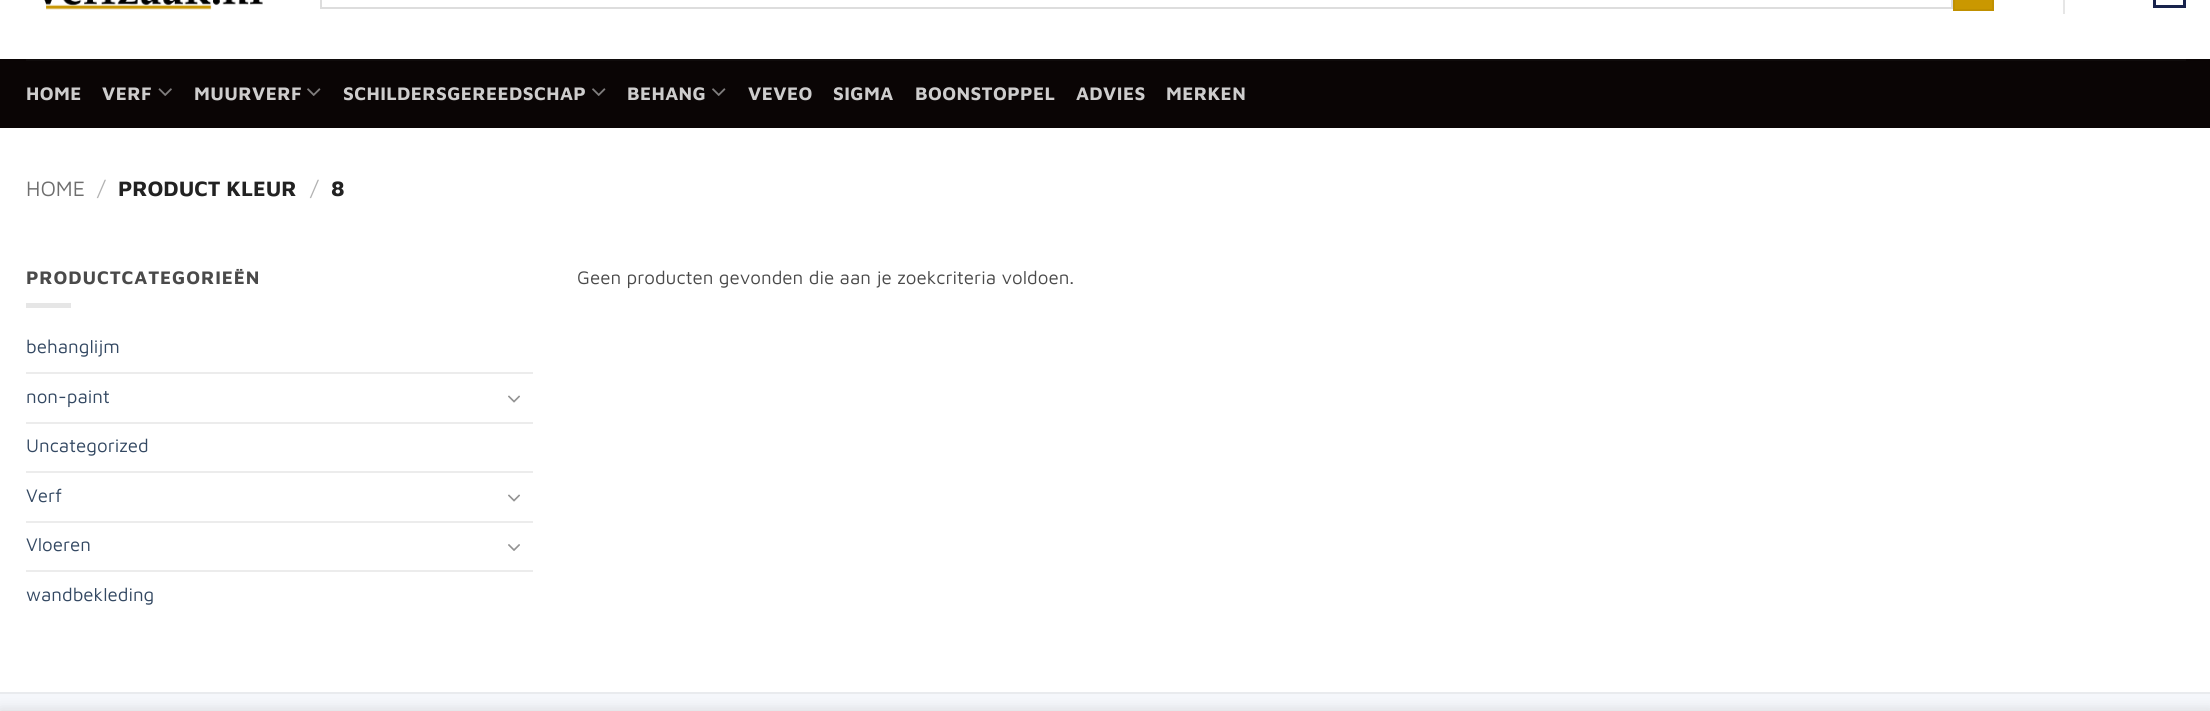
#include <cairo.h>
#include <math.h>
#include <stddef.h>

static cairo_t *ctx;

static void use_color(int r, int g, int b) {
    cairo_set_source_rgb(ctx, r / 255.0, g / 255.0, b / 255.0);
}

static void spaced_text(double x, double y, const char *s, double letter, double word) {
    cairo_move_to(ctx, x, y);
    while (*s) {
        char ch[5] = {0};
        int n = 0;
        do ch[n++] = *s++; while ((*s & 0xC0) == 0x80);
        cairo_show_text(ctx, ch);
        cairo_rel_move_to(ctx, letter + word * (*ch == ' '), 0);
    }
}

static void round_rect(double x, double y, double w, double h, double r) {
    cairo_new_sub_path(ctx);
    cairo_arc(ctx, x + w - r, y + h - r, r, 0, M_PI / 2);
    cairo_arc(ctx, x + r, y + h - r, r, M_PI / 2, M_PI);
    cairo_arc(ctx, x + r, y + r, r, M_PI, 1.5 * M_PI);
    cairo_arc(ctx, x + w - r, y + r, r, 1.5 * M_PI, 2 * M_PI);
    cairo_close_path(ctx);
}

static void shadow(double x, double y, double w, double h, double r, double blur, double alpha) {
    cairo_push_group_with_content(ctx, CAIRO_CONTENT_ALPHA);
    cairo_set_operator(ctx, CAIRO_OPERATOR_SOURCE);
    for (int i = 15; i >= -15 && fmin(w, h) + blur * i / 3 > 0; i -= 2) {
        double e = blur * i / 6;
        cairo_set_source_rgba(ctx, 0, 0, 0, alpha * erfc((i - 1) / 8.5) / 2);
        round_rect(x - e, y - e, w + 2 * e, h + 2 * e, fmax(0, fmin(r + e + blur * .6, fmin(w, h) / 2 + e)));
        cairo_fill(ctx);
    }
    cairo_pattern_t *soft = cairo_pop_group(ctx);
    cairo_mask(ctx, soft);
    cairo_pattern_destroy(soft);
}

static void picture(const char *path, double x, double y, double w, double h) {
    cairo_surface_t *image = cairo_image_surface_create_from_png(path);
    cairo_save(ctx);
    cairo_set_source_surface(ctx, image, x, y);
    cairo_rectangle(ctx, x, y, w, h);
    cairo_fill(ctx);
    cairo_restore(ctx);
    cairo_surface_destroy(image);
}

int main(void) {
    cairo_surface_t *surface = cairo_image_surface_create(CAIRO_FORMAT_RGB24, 2210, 711);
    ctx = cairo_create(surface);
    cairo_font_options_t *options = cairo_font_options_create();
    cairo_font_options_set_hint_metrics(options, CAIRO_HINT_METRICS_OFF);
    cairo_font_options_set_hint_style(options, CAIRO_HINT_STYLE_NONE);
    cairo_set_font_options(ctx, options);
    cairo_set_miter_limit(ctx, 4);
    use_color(255, 255, 255);
    cairo_paint(ctx);
    picture("img1.png", 44, 0, 219, 10);
    cairo_rectangle(ctx, 321, -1, 1631, 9);
    use_color(221, 221, 221);
    cairo_stroke(ctx);
    use_color(202, 152, 0);
    cairo_rectangle(ctx, 1954, -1, 39, 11);
    cairo_fill_preserve(ctx);
    use_color(192, 144, 0);
    cairo_stroke(ctx);
    use_color(230, 230, 230);
    cairo_rectangle(ctx, 2063, 0, 2, 14);
    cairo_fill(ctx);
    cairo_rectangle(ctx, 2154.5, -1.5, 30, 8);
    use_color(24, 35, 76);
    cairo_set_line_width(ctx, 3);
    cairo_stroke(ctx);
    use_color(10, 5, 5);
    cairo_rectangle(ctx, 0, 59, 2210, 69);
    cairo_fill(ctx);
    use_color(16, 12, 12);
    cairo_rectangle(ctx, 26, 59, 2160, 2);
    cairo_fill(ctx);
    cairo_select_font_face(ctx, "Maven Pro", CAIRO_FONT_SLANT_NORMAL, CAIRO_FONT_WEIGHT_BOLD);
    cairo_set_font_size(ctx, 18.75);
    use_color(206, 205, 205);
    spaced_text(26, 100, "HOME", 0.4, 0);
    spaced_text(102, 100, "VERF", 0.4, 0);
    picture("img2.png", 158, 88, 14, 8);
    spaced_text(194, 100, "MUURVERF", 0.4, 0);
    picture("img3.png", 307, 88, 14, 8);
    spaced_text(343, 100, "SCHILDERSGEREEDSCHAP", 0.4, 0);
    picture("img3.png", 592, 88, 14, 8);
    spaced_text(627, 100, "BEHANG", 0.4, 0);
    picture("img3.png", 712, 88, 14, 8);
    spaced_text(748, 100, "VEVEO", 0.4, 0);
    spaced_text(833, 100, "SIGMA", 0.4, 0);
    spaced_text(915, 100, "BOONSTOPPEL", 0.4, 0);
    spaced_text(1076, 100, "ADVIES", 0.4, 0);
    spaced_text(1166, 100, "MERKEN", 0.4, 0);
    cairo_select_font_face(ctx, "Maven Pro", CAIRO_FONT_SLANT_NORMAL, CAIRO_FONT_WEIGHT_NORMAL);
    cairo_set_font_size(ctx, 21.5);
    use_color(110, 110, 110);
    cairo_move_to(ctx, 26, 196);
    cairo_show_text(ctx, "HOME");
    use_color(178, 178, 178);
    cairo_move_to(ctx, 97, 196);
    cairo_show_text(ctx, "/");
    cairo_select_font_face(ctx, "Maven Pro", CAIRO_FONT_SLANT_NORMAL, CAIRO_FONT_WEIGHT_BOLD);
    use_color(34, 34, 34);
    cairo_move_to(ctx, 118, 196);
    cairo_show_text(ctx, "PRODUCT KLEUR");
    cairo_select_font_face(ctx, "Maven Pro", CAIRO_FONT_SLANT_NORMAL, CAIRO_FONT_WEIGHT_NORMAL);
    use_color(178, 178, 178);
    cairo_move_to(ctx, 310, 196);
    cairo_show_text(ctx, "/");
    cairo_select_font_face(ctx, "Maven Pro", CAIRO_FONT_SLANT_NORMAL, CAIRO_FONT_WEIGHT_BOLD);
    use_color(34, 34, 34);
    cairo_move_to(ctx, 331, 196);
    cairo_show_text(ctx, "8");
    cairo_set_font_size(ctx, 18.75);
    use_color(74, 74, 74);
    spaced_text(26, 284, "PRODUCTCATEGORIEËN", 0.9, 0);
    use_color(230, 230, 230);
    cairo_rectangle(ctx, 26, 303, 45, 5);
    cairo_fill(ctx);
    cairo_select_font_face(ctx, "Maven Pro", CAIRO_FONT_SLANT_NORMAL, CAIRO_FONT_WEIGHT_NORMAL);
    use_color(51, 72, 98);
    cairo_move_to(ctx, 26, 353);
    cairo_show_text(ctx, "behanglijm");
    use_color(236, 236, 236);
    cairo_rectangle(ctx, 26, 372, 507, 2);
    cairo_fill(ctx);
    use_color(51, 72, 98);
    cairo_move_to(ctx, 26, 403);
    cairo_show_text(ctx, "non-paint");
    picture("img4.png", 508, 395, 12, 8);
    use_color(236, 236, 236);
    cairo_rectangle(ctx, 26, 422, 507, 2);
    cairo_fill(ctx);
    use_color(51, 72, 98);
    cairo_move_to(ctx, 26, 452);
    cairo_show_text(ctx, "Uncategorized");
    use_color(236, 236, 236);
    cairo_rectangle(ctx, 26, 471, 507, 2);
    cairo_fill(ctx);
    use_color(51, 72, 98);
    cairo_move_to(ctx, 26, 502);
    cairo_show_text(ctx, "Verf");
    picture("img4.png", 508, 494, 12, 8);
    use_color(236, 236, 236);
    cairo_rectangle(ctx, 26, 521, 507, 2);
    cairo_fill(ctx);
    use_color(51, 72, 98);
    cairo_move_to(ctx, 26, 551);
    cairo_show_text(ctx, "Vloeren");
    picture("img5.png", 508, 544, 12, 7);
    use_color(236, 236, 236);
    cairo_rectangle(ctx, 26, 570, 507, 2);
    cairo_fill(ctx);
    use_color(51, 72, 98);
    cairo_move_to(ctx, 26, 601);
    cairo_show_text(ctx, "wandbekleding");
    use_color(74, 74, 74);
    cairo_move_to(ctx, 577, 284);
    cairo_show_text(ctx, "Geen producten gevonden die aan je zoekcriteria voldoen.");
    use_color(245, 247, 251);
    cairo_rectangle(ctx, 0, 694, 2210, 17);
    cairo_fill(ctx);
    use_color(233, 235, 238);
    cairo_rectangle(ctx, 0, 692, 2210, 2);
    cairo_fill(ctx);
    use_color(0, 0, 0);
    shadow(0, 711, 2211, 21, 0, 7, 0.14);
    cairo_surface_write_to_png(surface, "result.png");
    cairo_font_options_destroy(options);
    cairo_destroy(ctx);
    cairo_surface_destroy(surface);
    return 0;
}
